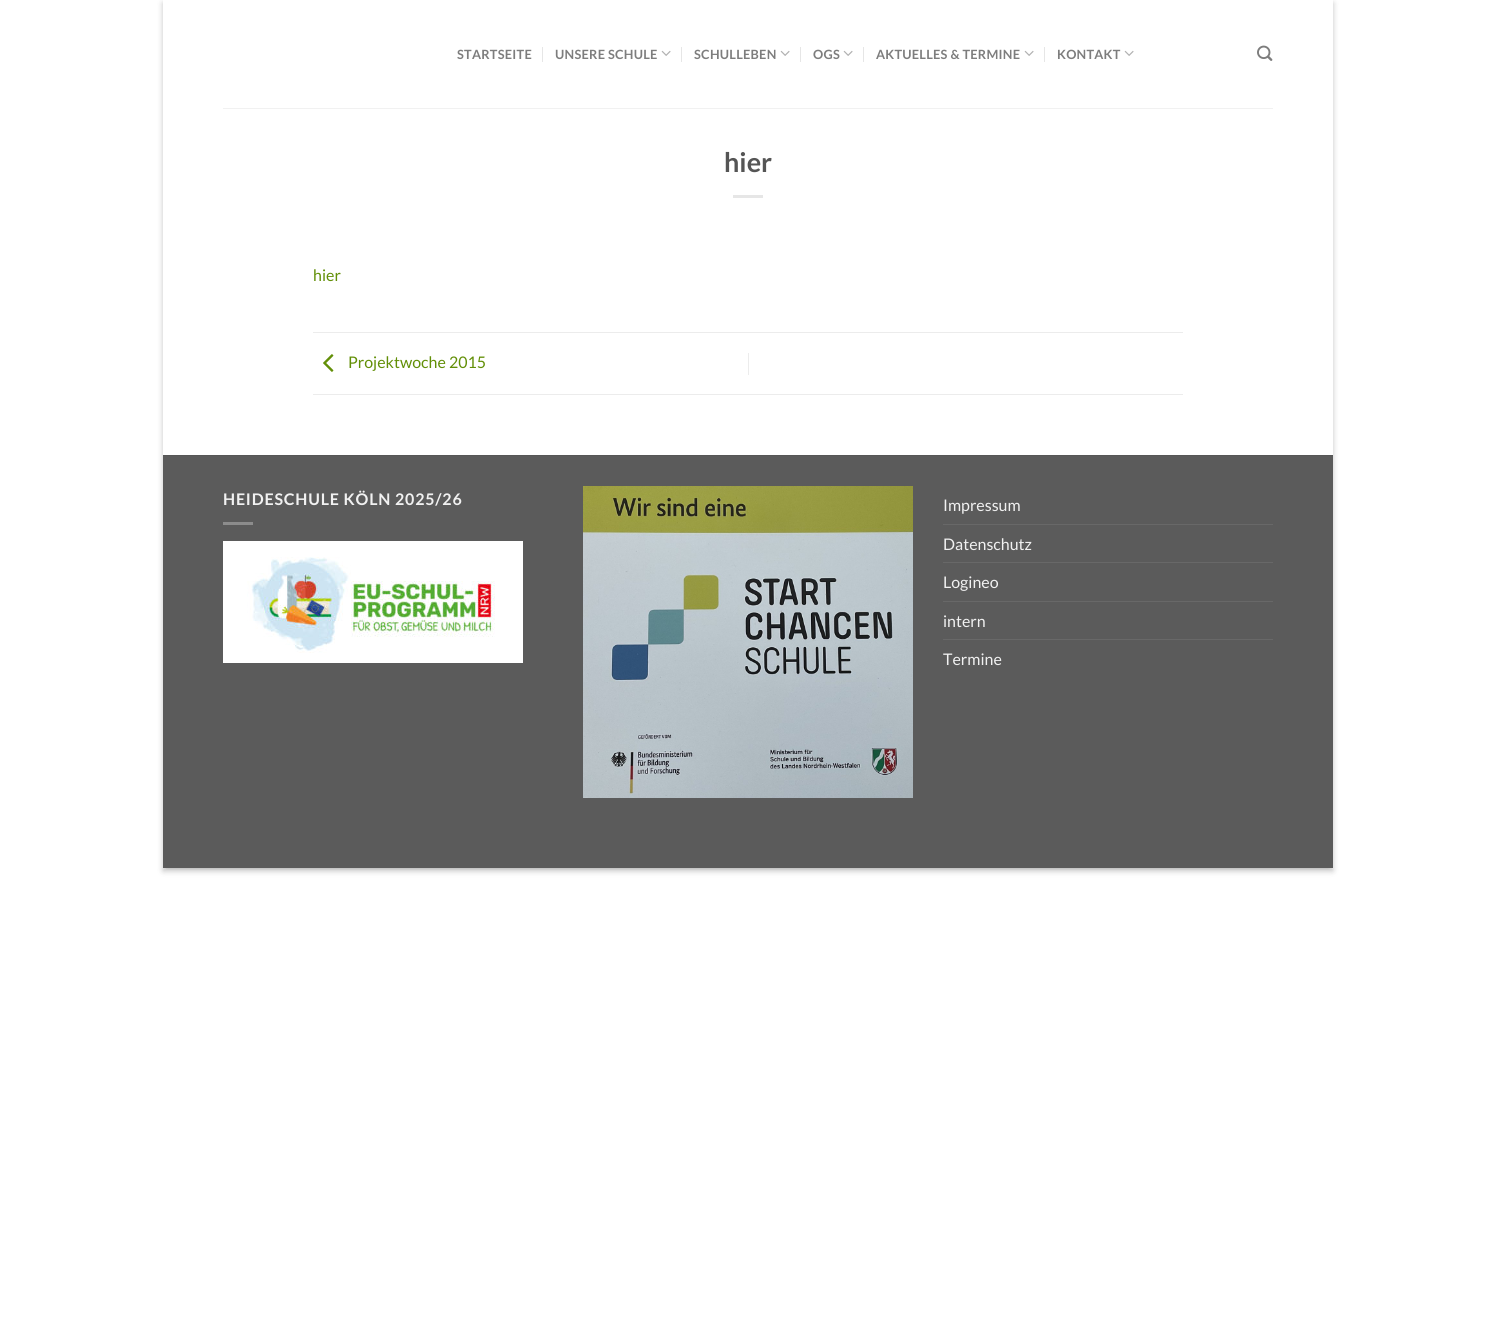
#include <cairo.h>
#include <math.h>
#include <stddef.h>

static cairo_t *ctx;

static void use_color(int r, int g, int b) {
    cairo_set_source_rgb(ctx, r / 255.0, g / 255.0, b / 255.0);
}

static void spaced_text(double x, double y, const char *s, double letter, double word) {
    cairo_move_to(ctx, x, y);
    while (*s) {
        char ch[5] = {0};
        int n = 0;
        do ch[n++] = *s++; while ((*s & 0xC0) == 0x80);
        cairo_show_text(ctx, ch);
        cairo_rel_move_to(ctx, letter + word * (*ch == ' '), 0);
    }
}

static void round_rect(double x, double y, double w, double h, double r) {
    cairo_new_sub_path(ctx);
    cairo_arc(ctx, x + w - r, y + h - r, r, 0, M_PI / 2);
    cairo_arc(ctx, x + r, y + h - r, r, M_PI / 2, M_PI);
    cairo_arc(ctx, x + r, y + r, r, M_PI, 1.5 * M_PI);
    cairo_arc(ctx, x + w - r, y + r, r, 1.5 * M_PI, 2 * M_PI);
    cairo_close_path(ctx);
}

static void shadow(double x, double y, double w, double h, double r, double blur, double alpha) {
    cairo_push_group_with_content(ctx, CAIRO_CONTENT_ALPHA);
    cairo_set_operator(ctx, CAIRO_OPERATOR_SOURCE);
    for (int i = 15; i >= -15 && fmin(w, h) + blur * i / 3 > 0; i -= 2) {
        double e = blur * i / 6;
        cairo_set_source_rgba(ctx, 0, 0, 0, alpha * erfc((i - 1) / 8.5) / 2);
        round_rect(x - e, y - e, w + 2 * e, h + 2 * e, fmax(0, fmin(r + e + blur * .6, fmin(w, h) / 2 + e)));
        cairo_fill(ctx);
    }
    cairo_pattern_t *soft = cairo_pop_group(ctx);
    cairo_mask(ctx, soft);
    cairo_pattern_destroy(soft);
}

static void picture(const char *path, double x, double y, double w, double h) {
    cairo_surface_t *image = cairo_image_surface_create_from_png(path);
    cairo_save(ctx);
    cairo_set_source_surface(ctx, image, x, y);
    cairo_rectangle(ctx, x, y, w, h);
    cairo_fill(ctx);
    cairo_restore(ctx);
    cairo_surface_destroy(image);
}

int main(void) {
    cairo_surface_t *surface = cairo_image_surface_create(CAIRO_FORMAT_RGB24, 1496, 1322);
    ctx = cairo_create(surface);
    cairo_font_options_t *options = cairo_font_options_create();
    cairo_font_options_set_hint_metrics(options, CAIRO_HINT_METRICS_OFF);
    cairo_font_options_set_hint_style(options, CAIRO_HINT_STYLE_NONE);
    cairo_set_font_options(ctx, options);
    cairo_set_miter_limit(ctx, 4);
    use_color(255, 255, 255);
    cairo_paint(ctx);
    cairo_save(ctx);
    cairo_set_fill_rule(ctx, CAIRO_FILL_RULE_EVEN_ODD);
    cairo_new_path(ctx);
    cairo_move_to(ctx, 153, 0);
    cairo_line_to(ctx, 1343, 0);
    cairo_line_to(ctx, 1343, 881);
    cairo_line_to(ctx, 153, 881);
    cairo_close_path(ctx);
    cairo_move_to(ctx, 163, 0);
    cairo_line_to(ctx, 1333, 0);
    cairo_line_to(ctx, 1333, 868);
    cairo_line_to(ctx, 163, 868);
    cairo_close_path(ctx);
    cairo_clip(ctx);
    use_color(0, 0, 0);
    shadow(163, 3, 1170, 868, 0, 3, 0.23);
    cairo_restore(ctx);
    cairo_save(ctx);
    cairo_rectangle(ctx, 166, 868, 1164, 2);
    cairo_clip(ctx);
    use_color(0, 0, 0);
    shadow(167, 7, 1162, 860, 0, 3, 0.16);
    cairo_restore(ctx);
    cairo_select_font_face(ctx, "Lato", CAIRO_FONT_SLANT_NORMAL, CAIRO_FONT_WEIGHT_BOLD);
    cairo_set_font_size(ctx, 12.75);
    use_color(125, 125, 125);
    spaced_text(457, 59, "STARTSEITE", 0.25, 0);
    use_color(230, 230, 230);
    cairo_rectangle(ctx, 542, 47, 1, 15);
    cairo_fill(ctx);
    use_color(125, 125, 125);
    spaced_text(555, 59, "UNSERE SCHULE", 0.25, 0);
    picture("img1.png", 661, 50, 10, 6);
    use_color(230, 230, 230);
    cairo_rectangle(ctx, 681, 47, 1, 15);
    cairo_fill(ctx);
    use_color(125, 125, 125);
    spaced_text(694, 59, "SCHULLEBEN", 0.25, 0);
    picture("img1.png", 780, 50, 10, 6);
    use_color(230, 230, 230);
    cairo_rectangle(ctx, 800, 47, 1, 15);
    cairo_fill(ctx);
    use_color(125, 125, 125);
    spaced_text(813, 59, "OGS", 0.25, 0);
    picture("img1.png", 843, 50, 10, 6);
    use_color(230, 230, 230);
    cairo_rectangle(ctx, 863, 47, 1, 15);
    cairo_fill(ctx);
    use_color(125, 125, 125);
    spaced_text(876, 59, "AKTUELLES & TERMINE", 0.25, 0);
    picture("img1.png", 1024, 50, 10, 6);
    use_color(230, 230, 230);
    cairo_rectangle(ctx, 1044, 47, 1, 15);
    cairo_fill(ctx);
    use_color(125, 125, 125);
    spaced_text(1057, 59, "KONTAKT", 0.25, 0);
    picture("img1.png", 1124, 50, 10, 6);
    picture("img2.png", 1257, 45, 16, 16);
    use_color(241, 241, 241);
    cairo_rectangle(ctx, 223, 108, 1050, 1);
    cairo_fill(ctx);
    cairo_set_font_size(ctx, 27);
    use_color(85, 85, 85);
    cairo_move_to(ctx, 724, 172);
    cairo_show_text(ctx, "hier");
    use_color(230, 230, 230);
    cairo_rectangle(ctx, 733, 195, 30, 3);
    cairo_fill(ctx);
    cairo_select_font_face(ctx, "Lato", CAIRO_FONT_SLANT_NORMAL, CAIRO_FONT_WEIGHT_NORMAL);
    cairo_set_font_size(ctx, 16);
    use_color(98, 143, 7);
    cairo_move_to(ctx, 313, 281);
    cairo_show_text(ctx, "hier");
    use_color(236, 236, 236);
    cairo_rectangle(ctx, 313, 332, 870, 1);
    cairo_fill(ctx);
    cairo_rectangle(ctx, 313, 394, 870, 1);
    cairo_fill(ctx);
    picture("img3.png", 323, 354, 11, 18);
    use_color(98, 143, 7);
    cairo_move_to(ctx, 348, 368);
    cairo_show_text(ctx, "Projektwoche 2015");
    use_color(236, 236, 236);
    cairo_rectangle(ctx, 748, 353, 1, 22);
    cairo_fill(ctx);
    use_color(91, 91, 91);
    cairo_rectangle(ctx, 163, 456, 1170, 412);
    cairo_fill(ctx);
    use_color(86, 86, 86);
    cairo_rectangle(ctx, 163, 455, 1170, 1);
    cairo_fill(ctx);
    cairo_select_font_face(ctx, "Lato", CAIRO_FONT_SLANT_NORMAL, CAIRO_FONT_WEIGHT_BOLD);
    use_color(241, 241, 241);
    spaced_text(223, 505, "HEIDESCHULE KÖLN 2025/26", 0.8, 0);
    use_color(140, 140, 140);
    cairo_rectangle(ctx, 223, 522, 30, 3);
    cairo_fill(ctx);
    picture("img4.png", 223, 541, 300, 122);
    picture("img5.png", 583, 486, 330, 312);
    cairo_select_font_face(ctx, "Lato", CAIRO_FONT_SLANT_NORMAL, CAIRO_FONT_WEIGHT_NORMAL);
    use_color(241, 241, 241);
    cairo_move_to(ctx, 943, 511);
    cairo_show_text(ctx, "Impressum");
    use_color(104, 104, 104);
    cairo_rectangle(ctx, 943, 524, 330, 1);
    cairo_fill(ctx);
    use_color(241, 241, 241);
    cairo_move_to(ctx, 943, 550);
    cairo_show_text(ctx, "Datenschutz");
    use_color(104, 104, 104);
    cairo_rectangle(ctx, 943, 562, 330, 1);
    cairo_fill(ctx);
    use_color(241, 241, 241);
    cairo_move_to(ctx, 943, 588);
    cairo_show_text(ctx, "Logineo");
    use_color(104, 104, 104);
    cairo_rectangle(ctx, 943, 601, 330, 1);
    cairo_fill(ctx);
    use_color(241, 241, 241);
    cairo_move_to(ctx, 943, 627);
    cairo_show_text(ctx, "intern");
    use_color(104, 104, 104);
    cairo_rectangle(ctx, 943, 639, 330, 1);
    cairo_fill(ctx);
    use_color(241, 241, 241);
    cairo_move_to(ctx, 943, 665);
    cairo_show_text(ctx, "Termine");
    cairo_surface_write_to_png(surface, "result.png");
    cairo_font_options_destroy(options);
    cairo_destroy(ctx);
    cairo_surface_destroy(surface);
    return 0;
}
